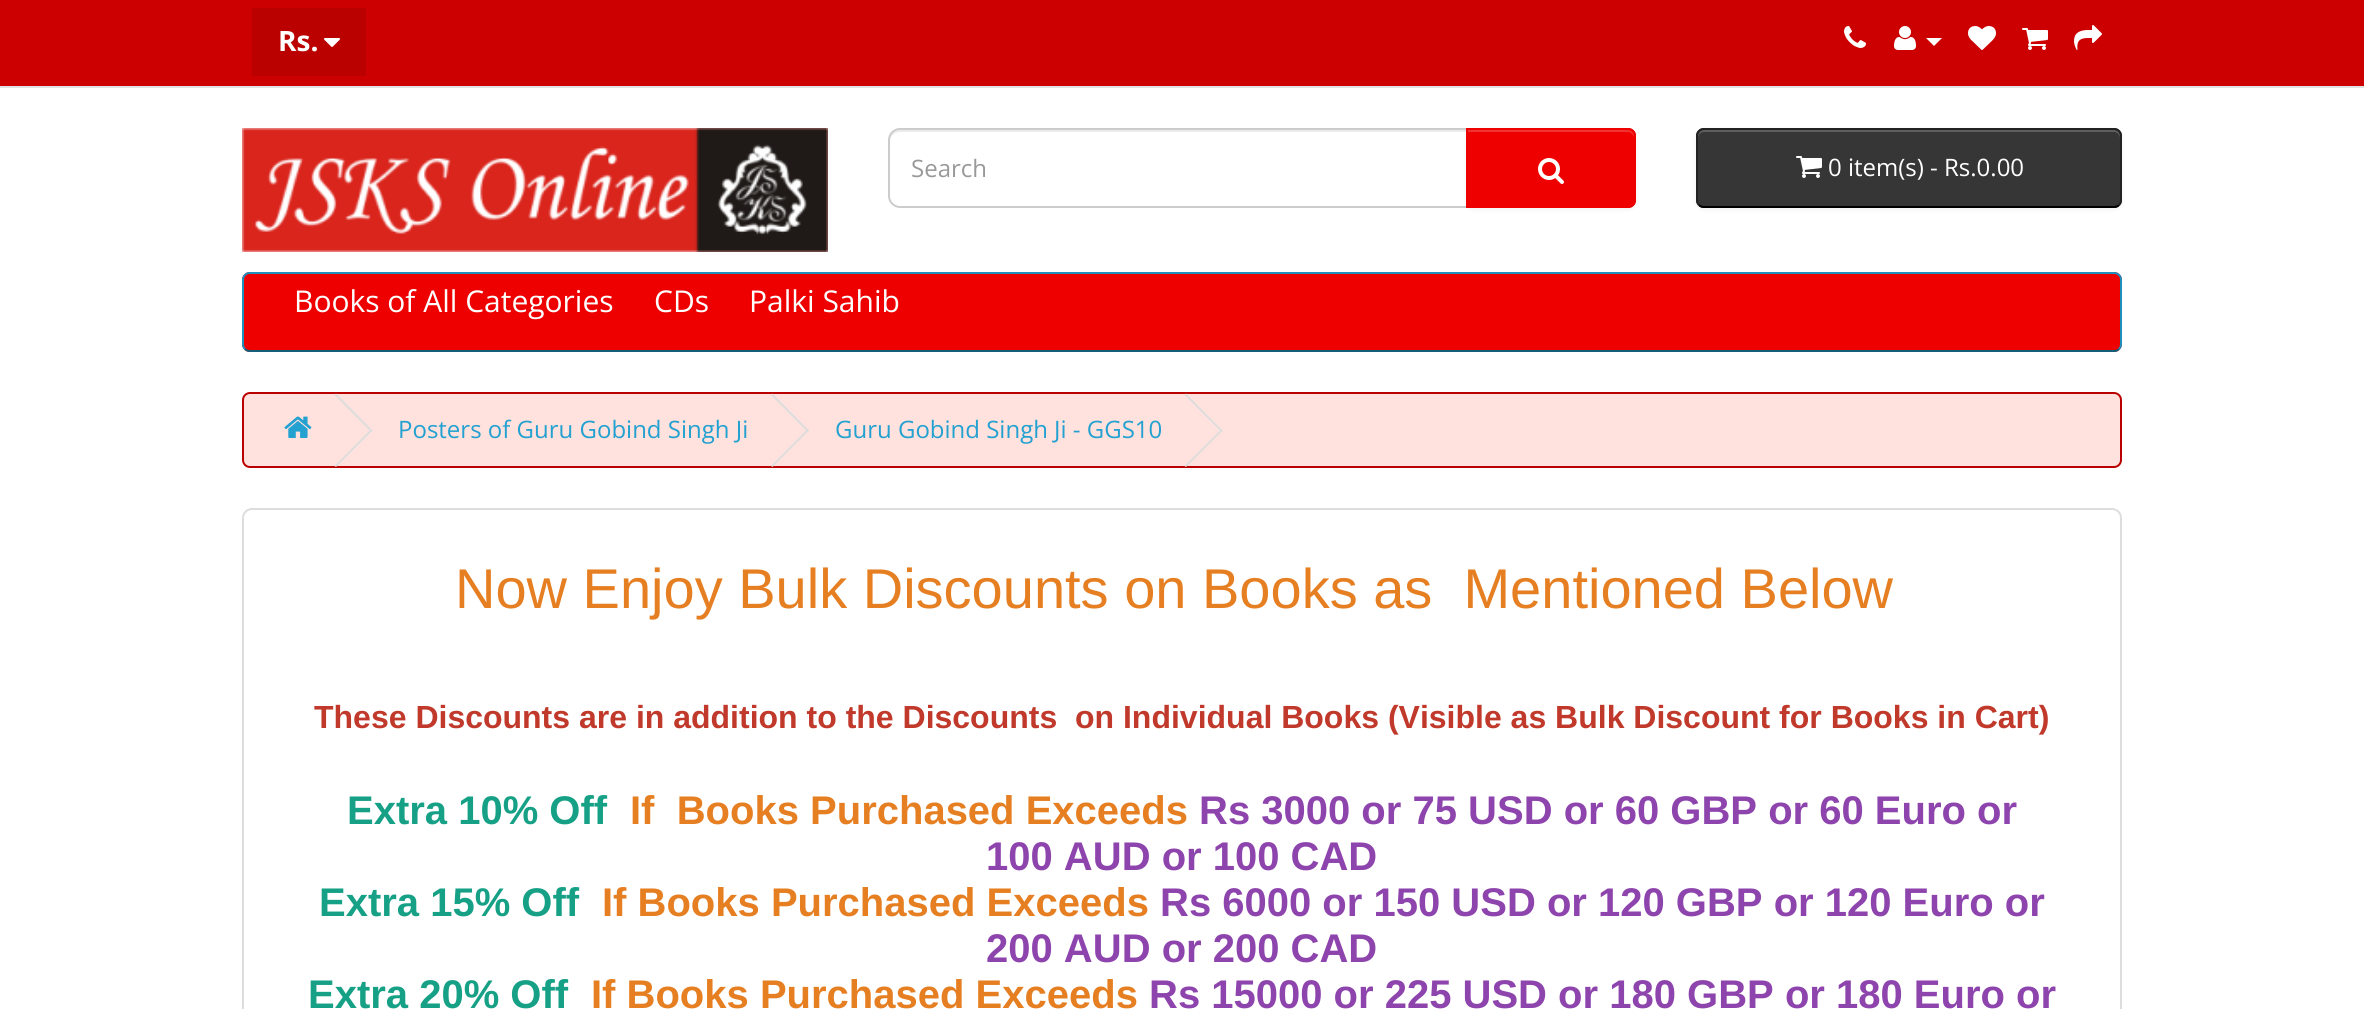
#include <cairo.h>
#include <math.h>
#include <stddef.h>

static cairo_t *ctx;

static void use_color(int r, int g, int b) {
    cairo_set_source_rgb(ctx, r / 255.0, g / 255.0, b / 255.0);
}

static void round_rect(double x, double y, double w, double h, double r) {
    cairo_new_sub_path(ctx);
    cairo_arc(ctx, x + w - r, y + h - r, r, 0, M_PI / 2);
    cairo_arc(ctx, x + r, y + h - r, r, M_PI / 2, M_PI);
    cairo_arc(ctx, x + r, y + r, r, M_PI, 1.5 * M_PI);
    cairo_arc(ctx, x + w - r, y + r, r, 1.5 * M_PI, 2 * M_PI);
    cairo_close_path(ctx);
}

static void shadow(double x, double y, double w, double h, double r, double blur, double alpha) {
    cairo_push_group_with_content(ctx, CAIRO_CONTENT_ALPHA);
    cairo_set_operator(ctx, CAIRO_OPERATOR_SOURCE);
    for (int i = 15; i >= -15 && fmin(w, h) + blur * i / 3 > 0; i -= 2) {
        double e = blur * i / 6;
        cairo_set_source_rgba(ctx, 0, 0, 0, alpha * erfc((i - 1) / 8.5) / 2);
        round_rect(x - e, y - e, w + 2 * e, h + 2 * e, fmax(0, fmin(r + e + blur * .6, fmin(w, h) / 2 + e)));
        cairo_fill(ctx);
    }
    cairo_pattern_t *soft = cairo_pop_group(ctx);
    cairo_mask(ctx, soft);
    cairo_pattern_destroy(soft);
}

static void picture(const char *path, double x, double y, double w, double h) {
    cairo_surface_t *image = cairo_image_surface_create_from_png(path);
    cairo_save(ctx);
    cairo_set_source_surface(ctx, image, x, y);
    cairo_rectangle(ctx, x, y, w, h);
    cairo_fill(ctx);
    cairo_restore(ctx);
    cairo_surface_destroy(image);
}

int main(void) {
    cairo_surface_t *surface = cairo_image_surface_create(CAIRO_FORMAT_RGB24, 2364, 1009);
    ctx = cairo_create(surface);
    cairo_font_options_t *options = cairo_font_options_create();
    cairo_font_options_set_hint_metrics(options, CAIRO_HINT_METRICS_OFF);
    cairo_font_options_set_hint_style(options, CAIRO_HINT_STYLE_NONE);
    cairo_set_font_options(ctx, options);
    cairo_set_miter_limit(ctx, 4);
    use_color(255, 255, 255);
    cairo_paint(ctx);
    use_color(204, 0, 0);
    cairo_rectangle(ctx, 0, 0, 2364, 86);
    cairo_fill(ctx);
    use_color(226, 226, 226);
    cairo_rectangle(ctx, 0, 86, 2364, 2);
    cairo_fill(ctx);
    use_color(187, 0, 0);
    cairo_rectangle(ctx, 252, 8, 114, 68);
    cairo_fill(ctx);
    cairo_select_font_face(ctx, "Open Sans", CAIRO_FONT_SLANT_NORMAL, CAIRO_FONT_WEIGHT_BOLD);
    cairo_set_font_size(ctx, 28);
    use_color(255, 255, 255);
    cairo_move_to(ctx, 278, 51);
    cairo_show_text(ctx, "Rs.");
    picture("img1.png", 324, 38, 16, 9);
    picture("img2.png", 1844, 26, 22, 22);
    picture("img3.png", 1894, 26, 22, 24);
    cairo_new_path(ctx);
    cairo_move_to(ctx, 1926, 38);
    cairo_line_to(ctx, 1942, 38);
    cairo_line_to(ctx, 1934, 46);
    cairo_close_path(ctx);
    cairo_fill(ctx);
    picture("img4.png", 1968, 26, 28, 24);
    picture("img5.png", 2022, 28, 26, 22);
    picture("img6.png", 2074, 25, 28, 25);
    picture("img7.png", 242, 128, 586, 124);
    use_color(236, 236, 236);
    cairo_new_path(ctx);
    cairo_move_to(ctx, 900, 132);
    cairo_line_to(ctx, 1466, 132);
    cairo_line_to(ctx, 1466, 130);
    cairo_line_to(ctx, 900, 130);
    cairo_curve_to(ctx, 894, 130, 890, 134, 890, 140);
    cairo_line_to(ctx, 890, 142);
    cairo_curve_to(ctx, 890, 136, 894, 132, 900, 132);
    cairo_close_path(ctx);
    cairo_fill(ctx);
    cairo_new_path(ctx);
    cairo_move_to(ctx, 900, 129);
    cairo_line_to(ctx, 1467, 129);
    cairo_line_to(ctx, 1467, 207);
    cairo_line_to(ctx, 900, 207);
    cairo_curve_to(ctx, 894, 207, 889, 202, 889, 196);
    cairo_line_to(ctx, 889, 140);
    cairo_curve_to(ctx, 889, 134, 894, 129, 900, 129);
    cairo_close_path(ctx);
    use_color(204, 204, 204);
    cairo_stroke(ctx);
    cairo_select_font_face(ctx, "Open Sans", CAIRO_FONT_SLANT_NORMAL, CAIRO_FONT_WEIGHT_NORMAL);
    cairo_set_font_size(ctx, 24);
    use_color(153, 153, 153);
    cairo_move_to(ctx, 911, 177);
    cairo_show_text(ctx, "Search");
    use_color(0, 0, 0);
    shadow(1466, 130, 170, 80, 8, 2, 0.05);
    use_color(239, 0, 0);
    cairo_new_path(ctx);
    cairo_move_to(ctx, 1466, 128);
    cairo_line_to(ctx, 1628, 128);
    cairo_curve_to(ctx, 1632.5, 128, 1636, 131.5, 1636, 136);
    cairo_line_to(ctx, 1636, 200);
    cairo_curve_to(ctx, 1636, 204.5, 1632.5, 208, 1628, 208);
    cairo_line_to(ctx, 1466, 208);
    cairo_close_path(ctx);
    cairo_fill(ctx);
    use_color(242, 51, 51);
    cairo_new_path(ctx);
    cairo_move_to(ctx, 1468, 132);
    cairo_line_to(ctx, 1628, 132);
    cairo_curve_to(ctx, 1631, 132, 1634, 135, 1634, 138);
    cairo_line_to(ctx, 1634, 136);
    cairo_curve_to(ctx, 1634, 133, 1631, 130, 1628, 130);
    cairo_line_to(ctx, 1468, 130);
    cairo_close_path(ctx);
    cairo_fill(ctx);
    cairo_new_path(ctx);
    cairo_move_to(ctx, 1467, 129);
    cairo_line_to(ctx, 1628, 129);
    cairo_curve_to(ctx, 1632, 129, 1635, 132, 1635, 136);
    cairo_line_to(ctx, 1635, 200);
    cairo_curve_to(ctx, 1635, 204, 1632, 207, 1628, 207);
    cairo_line_to(ctx, 1467, 207);
    cairo_close_path(ctx);
    use_color(239, 0, 0);
    cairo_stroke(ctx);
    picture("img8.png", 1538, 158, 26, 26);
    use_color(0, 0, 0);
    shadow(1696, 130, 426, 80, 8, 2, 0.05);
    use_color(54, 54, 54);
    round_rect(1696, 128, 426, 80, 8);
    cairo_fill(ctx);
    use_color(94, 94, 94);
    cairo_new_path(ctx);
    cairo_move_to(ctx, 1704, 132);
    cairo_line_to(ctx, 2114, 132);
    cairo_curve_to(ctx, 2117, 132, 2120, 135, 2120, 138);
    cairo_line_to(ctx, 2120, 136);
    cairo_curve_to(ctx, 2120, 133, 2117, 130, 2114, 130);
    cairo_line_to(ctx, 1704, 130);
    cairo_curve_to(ctx, 1701, 130, 1698, 133, 1698, 136);
    cairo_line_to(ctx, 1698, 138);
    cairo_curve_to(ctx, 1698, 135, 1701, 132, 1704, 132);
    cairo_close_path(ctx);
    cairo_fill(ctx);
    cairo_new_path(ctx);
    cairo_move_to(ctx, 2119, 205);
    cairo_curve_to(ctx, 2117.5, 206.5, 2116, 207, 2114, 207);
    cairo_line_to(ctx, 1704, 207);
    cairo_curve_to(ctx, 1702, 207, 1700.5, 206.5, 1699, 205);
    use_color(0, 0, 0);
    cairo_stroke(ctx);
    cairo_new_path(ctx);
    cairo_move_to(ctx, 1699, 205);
    cairo_curve_to(ctx, 1697.5, 203.5, 1697, 202, 1697, 200);
    cairo_line_to(ctx, 1697, 136);
    cairo_curve_to(ctx, 1697, 134, 1697.5, 132.5, 1699, 131);
    cairo_curve_to(ctx, 1700.5, 129.5, 1702, 129, 1704, 129);
    cairo_line_to(ctx, 2114, 129);
    cairo_curve_to(ctx, 2116, 129, 2117.5, 129.5, 2119, 131);
    cairo_curve_to(ctx, 2120.5, 132.5, 2121, 134, 2121, 136);
    cairo_line_to(ctx, 2121, 200);
    cairo_curve_to(ctx, 2121, 202, 2120.5, 203.5, 2119, 205);
    use_color(34, 34, 34);
    cairo_stroke(ctx);
    picture("img9.png", 1796, 156, 26, 22);
    use_color(255, 255, 255);
    cairo_move_to(ctx, 1828, 176);
    cairo_show_text(ctx, "0 item(s) - Rs.0.00");
    use_color(239, 0, 0);
    round_rect(242, 272, 1880, 80, 8);
    cairo_fill(ctx);
    cairo_new_path(ctx);
    cairo_move_to(ctx, 2119, 349);
    cairo_curve_to(ctx, 2117.5, 350.5, 2116, 351, 2114, 351);
    cairo_line_to(ctx, 250, 351);
    cairo_curve_to(ctx, 248, 351, 246.5, 350.5, 245, 349);
    use_color(20, 94, 122);
    cairo_stroke(ctx);
    cairo_new_path(ctx);
    cairo_move_to(ctx, 245, 349);
    cairo_curve_to(ctx, 243.5, 347.5, 243, 346, 243, 344);
    cairo_line_to(ctx, 243, 280);
    cairo_curve_to(ctx, 243, 278, 243.5, 276.5, 245, 275);
    cairo_curve_to(ctx, 246.5, 273.5, 248, 273, 250, 273);
    cairo_line_to(ctx, 2114, 273);
    cairo_curve_to(ctx, 2116, 273, 2117.5, 273.5, 2119, 275);
    cairo_curve_to(ctx, 2120.5, 276.5, 2121, 278, 2121, 280);
    cairo_line_to(ctx, 2121, 344);
    cairo_curve_to(ctx, 2121, 346, 2120.5, 347.5, 2119, 349);
    use_color(31, 144, 187);
    cairo_stroke(ctx);
    cairo_set_font_size(ctx, 30);
    use_color(255, 255, 255);
    cairo_move_to(ctx, 294, 312);
    cairo_show_text(ctx, "Books of All Categories");
    cairo_move_to(ctx, 654, 312);
    cairo_show_text(ctx, "CDs");
    cairo_move_to(ctx, 749, 312);
    cairo_show_text(ctx, "Palki Sahib");
    use_color(255, 226, 221);
    round_rect(243, 393, 1878, 74, 7);
    cairo_fill_preserve(ctx);
    use_color(187, 0, 0);
    cairo_stroke(ctx);
    picture("img10.png", 284, 416, 28, 22);
    use_color(221, 221, 221);
    cairo_new_path(ctx);
    cairo_move_to(ctx, 334.5, 395);
    cairo_line_to(ctx, 336, 393.5);
    cairo_line_to(ctx, 372.5, 430.5);
    cairo_line_to(ctx, 371, 432);
    cairo_close_path(ctx);
    cairo_fill(ctx);
    cairo_new_path(ctx);
    cairo_move_to(ctx, 334.5, 466);
    cairo_line_to(ctx, 371, 429);
    cairo_line_to(ctx, 372.5, 430.5);
    cairo_line_to(ctx, 336, 467);
    cairo_close_path(ctx);
    cairo_fill(ctx);
    cairo_set_font_size(ctx, 24);
    use_color(35, 161, 209);
    cairo_move_to(ctx, 398, 438);
    cairo_show_text(ctx, "Posters of Guru Gobind Singh Ji");
    use_color(221, 221, 221);
    cairo_new_path(ctx);
    cairo_move_to(ctx, 771, 395);
    cairo_line_to(ctx, 772.5, 393.5);
    cairo_line_to(ctx, 809, 430.5);
    cairo_line_to(ctx, 807.5, 432);
    cairo_close_path(ctx);
    cairo_fill(ctx);
    cairo_new_path(ctx);
    cairo_move_to(ctx, 771, 466);
    cairo_line_to(ctx, 807.5, 429);
    cairo_line_to(ctx, 809, 430.5);
    cairo_line_to(ctx, 772.5, 467);
    cairo_close_path(ctx);
    cairo_fill(ctx);
    use_color(35, 161, 209);
    cairo_move_to(ctx, 835, 438);
    cairo_show_text(ctx, "Guru Gobind Singh Ji - GGS10");
    use_color(221, 221, 221);
    cairo_new_path(ctx);
    cairo_move_to(ctx, 1184.5, 395);
    cairo_line_to(ctx, 1186, 393.5);
    cairo_line_to(ctx, 1222.5, 430.5);
    cairo_line_to(ctx, 1221.5, 432);
    cairo_close_path(ctx);
    cairo_fill(ctx);
    cairo_new_path(ctx);
    cairo_move_to(ctx, 1184.5, 466);
    cairo_line_to(ctx, 1221.5, 429);
    cairo_line_to(ctx, 1222.5, 430.5);
    cairo_line_to(ctx, 1186, 467);
    cairo_close_path(ctx);
    cairo_fill(ctx);
    round_rect(243, 509, 1878, 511, 9);
    cairo_stroke(ctx);
    cairo_select_font_face(ctx, "Liberation Sans", CAIRO_FONT_SLANT_NORMAL, CAIRO_FONT_WEIGHT_NORMAL);
    cairo_set_font_size(ctx, 56);
    use_color(230, 126, 34);
    cairo_move_to(ctx, 455, 608);
    cairo_show_text(ctx, "Now Enjoy Bulk Discounts on Books as  Mentioned Below");
    cairo_select_font_face(ctx, "Liberation Sans", CAIRO_FONT_SLANT_NORMAL, CAIRO_FONT_WEIGHT_BOLD);
    cairo_set_font_size(ctx, 32);
    use_color(192, 57, 43);
    cairo_move_to(ctx, 314, 728);
    cairo_show_text(ctx, "These Discounts are in addition to the Discounts  on Individual Books (Visible as Bulk Discount for Books in Cart)");
    cairo_set_font_size(ctx, 40);
    use_color(22, 160, 133);
    cairo_move_to(ctx, 347, 824);
    cairo_show_text(ctx, "Extra 10% Off");
    use_color(230, 126, 34);
    cairo_move_to(ctx, 630, 824);
    cairo_show_text(ctx, "If  Books Purchased Exceeds");
    use_color(142, 68, 173);
    cairo_move_to(ctx, 1199, 824);
    cairo_show_text(ctx, "Rs 3000 or 75 USD or 60 GBP or 60 Euro or");
    cairo_move_to(ctx, 986, 870);
    cairo_show_text(ctx, "100 AUD or 100 CAD");
    use_color(22, 160, 133);
    cairo_move_to(ctx, 319, 916);
    cairo_show_text(ctx, "Extra 15% Off");
    use_color(230, 126, 34);
    cairo_move_to(ctx, 602, 916);
    cairo_show_text(ctx, "If Books Purchased Exceeds");
    use_color(142, 68, 173);
    cairo_move_to(ctx, 1160, 916);
    cairo_show_text(ctx, "Rs 6000 or 150 USD or 120 GBP or 120 Euro or");
    cairo_move_to(ctx, 986, 962);
    cairo_show_text(ctx, "200 AUD or 200 CAD");
    use_color(22, 160, 133);
    cairo_move_to(ctx, 308, 1008);
    cairo_show_text(ctx, "Extra 20% Off");
    use_color(230, 126, 34);
    cairo_move_to(ctx, 591, 1008);
    cairo_show_text(ctx, "If Books Purchased Exceeds");
    use_color(142, 68, 173);
    cairo_move_to(ctx, 1149, 1008);
    cairo_show_text(ctx, "Rs 15000 or 225 USD or 180 GBP or 180 Euro or");
    cairo_surface_write_to_png(surface, "result.png");
    cairo_font_options_destroy(options);
    cairo_destroy(ctx);
    cairo_surface_destroy(surface);
    return 0;
}
